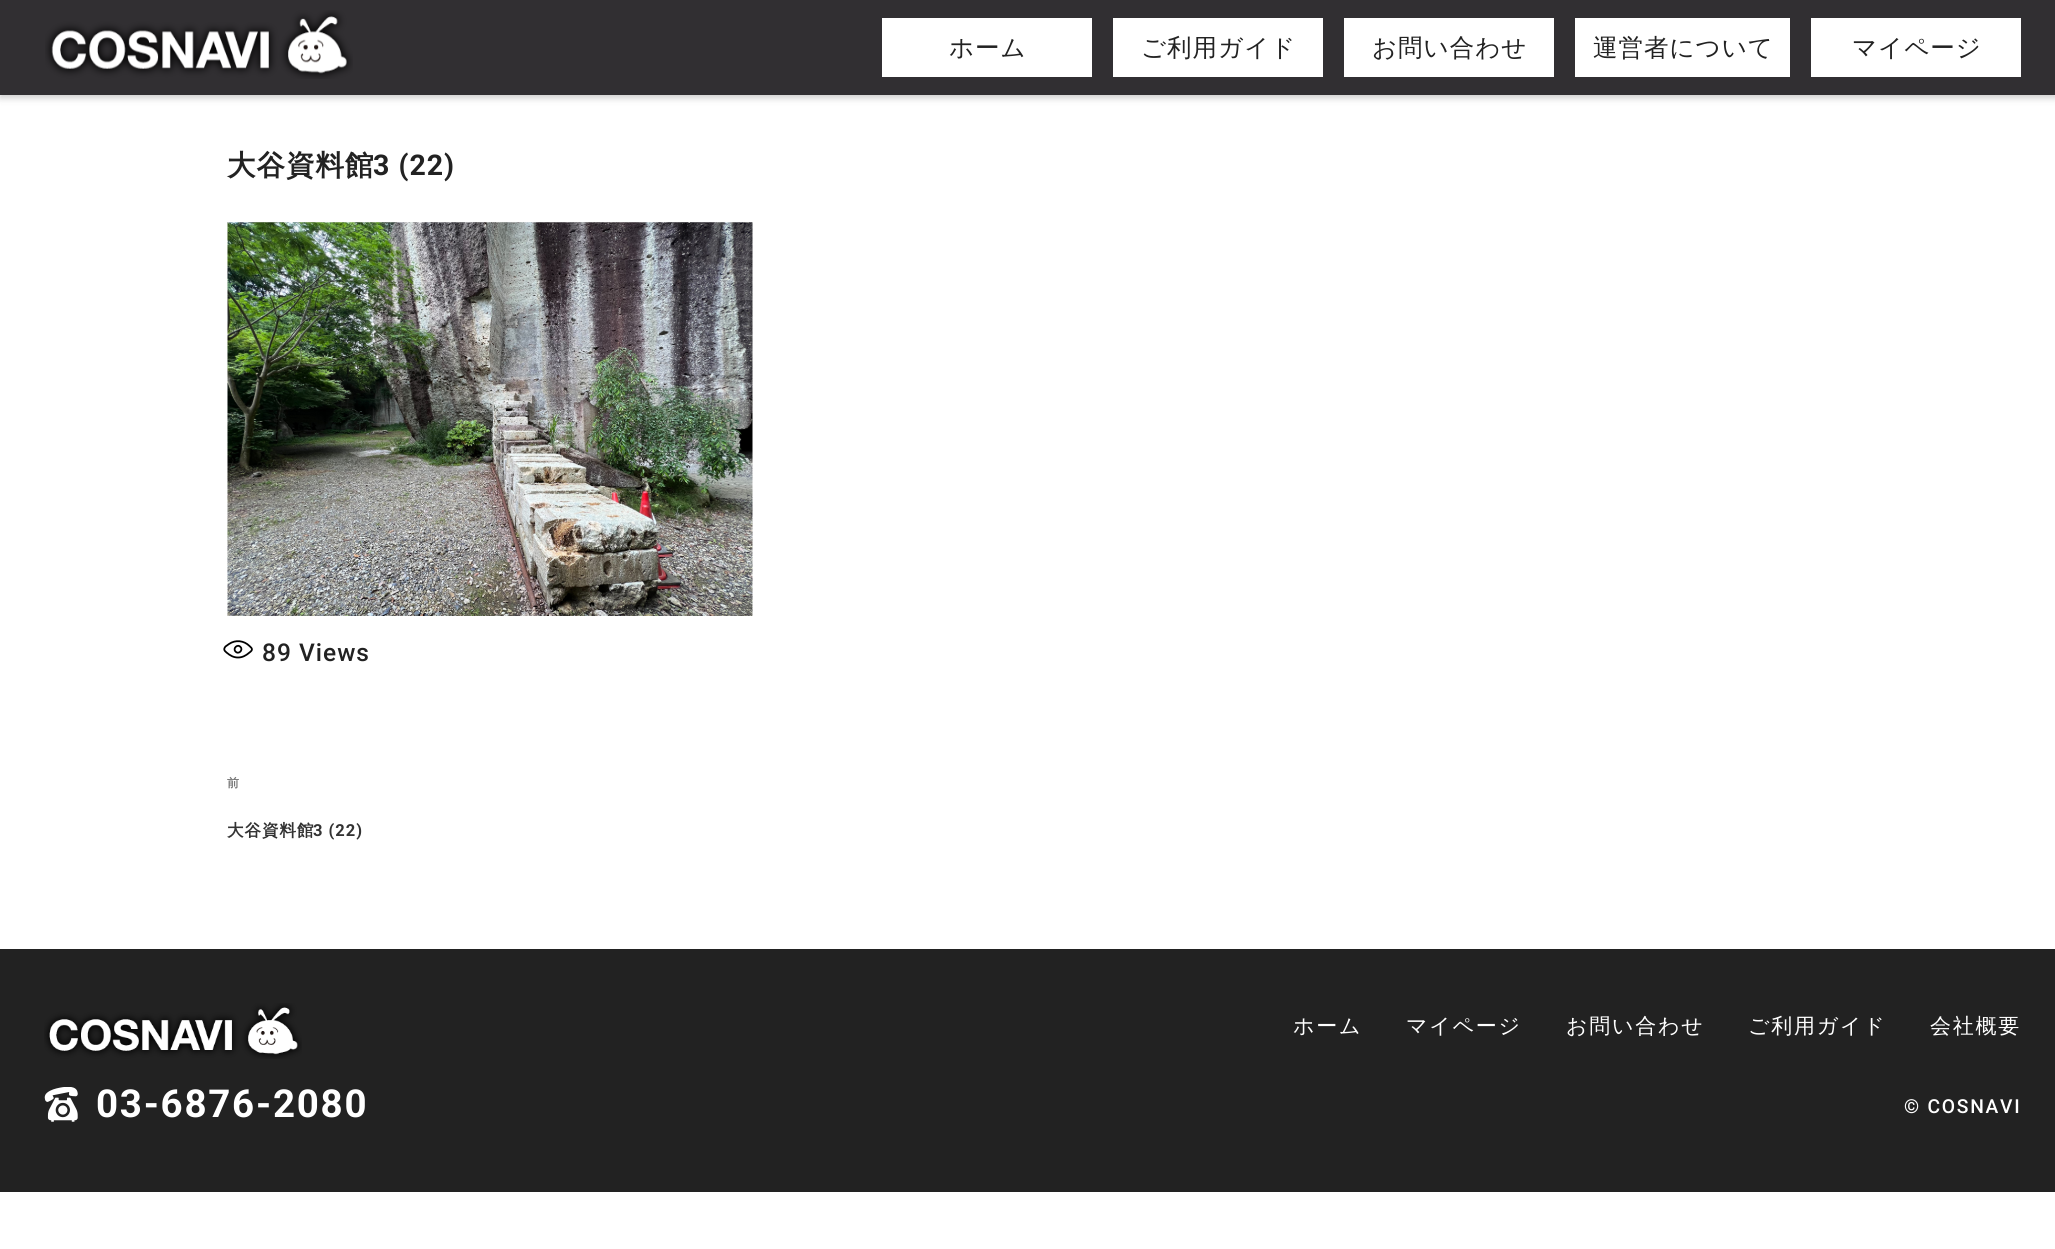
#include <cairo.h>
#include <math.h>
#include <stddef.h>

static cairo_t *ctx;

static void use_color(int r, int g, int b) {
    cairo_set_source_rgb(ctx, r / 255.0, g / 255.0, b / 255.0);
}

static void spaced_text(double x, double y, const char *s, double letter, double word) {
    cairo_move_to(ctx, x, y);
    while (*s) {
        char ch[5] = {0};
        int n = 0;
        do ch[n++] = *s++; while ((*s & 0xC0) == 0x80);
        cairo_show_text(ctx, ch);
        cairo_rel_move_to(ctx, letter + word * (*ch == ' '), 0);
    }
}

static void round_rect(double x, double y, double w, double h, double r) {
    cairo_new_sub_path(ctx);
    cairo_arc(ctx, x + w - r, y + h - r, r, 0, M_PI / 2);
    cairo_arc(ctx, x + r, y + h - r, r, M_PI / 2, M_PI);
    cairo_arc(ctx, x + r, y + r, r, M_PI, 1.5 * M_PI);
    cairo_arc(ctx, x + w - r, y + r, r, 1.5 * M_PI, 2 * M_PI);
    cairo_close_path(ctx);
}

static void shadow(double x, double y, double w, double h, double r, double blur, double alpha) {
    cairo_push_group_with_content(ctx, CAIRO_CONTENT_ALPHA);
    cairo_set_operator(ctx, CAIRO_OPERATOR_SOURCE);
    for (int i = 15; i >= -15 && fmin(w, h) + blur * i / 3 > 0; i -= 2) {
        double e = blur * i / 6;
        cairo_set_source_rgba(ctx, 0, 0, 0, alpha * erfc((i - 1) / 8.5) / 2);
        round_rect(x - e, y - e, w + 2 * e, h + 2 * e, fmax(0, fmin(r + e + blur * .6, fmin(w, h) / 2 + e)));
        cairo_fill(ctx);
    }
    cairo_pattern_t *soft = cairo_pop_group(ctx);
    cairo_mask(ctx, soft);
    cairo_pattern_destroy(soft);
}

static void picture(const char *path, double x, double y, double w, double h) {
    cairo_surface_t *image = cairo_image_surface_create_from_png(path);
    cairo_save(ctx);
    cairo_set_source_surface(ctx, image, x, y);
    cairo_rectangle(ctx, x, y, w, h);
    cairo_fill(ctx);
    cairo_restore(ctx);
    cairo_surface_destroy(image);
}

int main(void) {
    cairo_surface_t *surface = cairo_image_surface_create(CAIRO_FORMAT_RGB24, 2055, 1249);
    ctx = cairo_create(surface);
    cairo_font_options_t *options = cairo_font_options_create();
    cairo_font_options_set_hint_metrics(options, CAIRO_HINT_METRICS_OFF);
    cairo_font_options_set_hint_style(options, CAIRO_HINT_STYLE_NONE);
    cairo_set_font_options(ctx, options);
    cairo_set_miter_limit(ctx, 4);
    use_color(255, 255, 255);
    cairo_paint(ctx);
    use_color(0, 0, 0);
    shadow(0, 4, 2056, 94, 0, 3.5, 0.2);
    use_color(49, 47, 50);
    cairo_rectangle(ctx, 0, 0, 2055, 95);
    cairo_fill(ctx);
    picture("img1.png", 45, 10, 308, 69);
    use_color(255, 255, 255);
    cairo_rectangle(ctx, 882, 18, 210, 59);
    cairo_fill(ctx);
    cairo_select_font_face(ctx, "WenQuanYi Zen Hei Medium", CAIRO_FONT_SLANT_NORMAL, CAIRO_FONT_WEIGHT_NORMAL);
    cairo_set_font_size(ctx, 24.5);
    use_color(34, 34, 34);
    spaced_text(949, 56, "ホーム", 1, 0);
    use_color(255, 255, 255);
    cairo_rectangle(ctx, 1113, 18, 210, 59);
    cairo_fill(ctx);
    use_color(34, 34, 34);
    spaced_text(1141, 56, "ご利用ガイド", 1, 0);
    use_color(255, 255, 255);
    cairo_rectangle(ctx, 1344, 18, 210, 59);
    cairo_fill(ctx);
    use_color(34, 34, 34);
    spaced_text(1372, 56, "お問い合わせ", 1, 0);
    use_color(255, 255, 255);
    cairo_rectangle(ctx, 1575, 18, 215, 59);
    cairo_fill(ctx);
    use_color(34, 34, 34);
    spaced_text(1593, 56, "運営者について", 1, 0);
    use_color(255, 255, 255);
    cairo_rectangle(ctx, 1811, 18, 210, 59);
    cairo_fill(ctx);
    use_color(34, 34, 34);
    spaced_text(1852, 56, "マイページ", 1, 0);
    cairo_select_font_face(ctx, "WenQuanYi Zen Hei", CAIRO_FONT_SLANT_NORMAL, CAIRO_FONT_WEIGHT_BOLD);
    cairo_set_font_size(ctx, 28.5);
    spaced_text(227, 175, "大谷資料館", 1, 0);
    cairo_select_font_face(ctx, "Roboto", CAIRO_FONT_SLANT_NORMAL, CAIRO_FONT_WEIGHT_BOLD);
    spaced_text(373, 175, "3 (22)", 1, 0);
    picture("img2.png", 227, 222, 526, 394);
    cairo_new_path(ctx);
    cairo_move_to(ctx, 249.5, 646);
    cairo_curve_to(ctx, 252.5, 648.5, 253, 650, 249.5, 652.5);
    cairo_curve_to(ctx, 246, 655.5, 242.5, 657.5, 238, 657.5);
    cairo_curve_to(ctx, 233.5, 657.5, 230, 655.5, 226.5, 652.5);
    cairo_curve_to(ctx, 224, 650.5, 223.5, 649, 225.5, 646.5);
    cairo_line_to(ctx, 229, 644);
    cairo_curve_to(ctx, 235.5, 639.5, 244, 640.5, 249.5, 646);
    cairo_close_path(ctx);
    cairo_move_to(ctx, 240.5, 647);
    cairo_curve_to(ctx, 243.5, 650, 238.5, 655, 235.5, 651.5);
    cairo_curve_to(ctx, 232.5, 648.5, 237.5, 643.5, 240.5, 647);
    cairo_close_path(ctx);
    use_color(0, 0, 0);
    cairo_set_line_width(ctx, 1.8);
    cairo_stroke(ctx);
    cairo_select_font_face(ctx, "Roboto Medium", CAIRO_FONT_SLANT_NORMAL, CAIRO_FONT_WEIGHT_NORMAL);
    cairo_set_font_size(ctx, 24.5);
    use_color(34, 34, 34);
    spaced_text(262, 661, "89 Views", 1, 0);
    cairo_select_font_face(ctx, "WenQuanYi Zen Hei", CAIRO_FONT_SLANT_NORMAL, CAIRO_FONT_WEIGHT_BOLD);
    cairo_set_font_size(ctx, 12);
    use_color(118, 118, 118);
    spaced_text(227, 787, "前", 2, 0);
    cairo_set_font_size(ctx, 16.5);
    use_color(51, 51, 51);
    spaced_text(227, 836, "大谷資料館", 1, 0);
    cairo_select_font_face(ctx, "Roboto", CAIRO_FONT_SLANT_NORMAL, CAIRO_FONT_WEIGHT_BOLD);
    spaced_text(313, 836, "3 (22)", 1, 0);
    use_color(34, 34, 34);
    cairo_rectangle(ctx, 0, 949, 2055, 243);
    cairo_fill(ctx);
    picture("img3.png", 44, 1003, 258, 56);
    picture("img4.png", 44, 1087, 34, 35);
    cairo_set_font_size(ctx, 38.5);
    use_color(255, 255, 255);
    spaced_text(96, 1117, "03-6876-2080", 1.75, 0);
    cairo_select_font_face(ctx, "WenQuanYi Zen Hei Medium", CAIRO_FONT_SLANT_NORMAL, CAIRO_FONT_WEIGHT_NORMAL);
    cairo_set_font_size(ctx, 21);
    spaced_text(1293, 1033, "ホーム", 1.75, 0);
    spaced_text(1406, 1033, "マイページ", 1.75, 0);
    spaced_text(1566, 1033, "お問い合わせ", 1.75, 0);
    spaced_text(1748, 1033, "ご利用ガイド", 1.75, 0);
    spaced_text(1930, 1033, "会社概要", 1.75, 0);
    cairo_select_font_face(ctx, "Roboto Medium", CAIRO_FONT_SLANT_NORMAL, CAIRO_FONT_WEIGHT_NORMAL);
    cairo_set_font_size(ctx, 19.25);
    spaced_text(1904, 1113, "© COSNAVI", 1.75, 0);
    cairo_surface_write_to_png(surface, "result.png");
    cairo_font_options_destroy(options);
    cairo_destroy(ctx);
    cairo_surface_destroy(surface);
    return 0;
}
